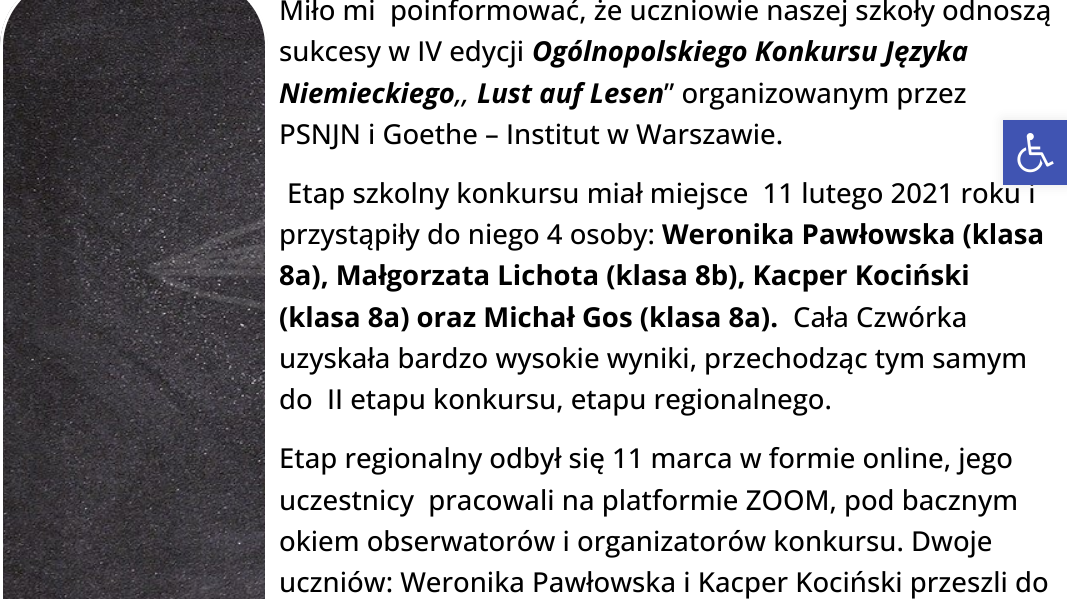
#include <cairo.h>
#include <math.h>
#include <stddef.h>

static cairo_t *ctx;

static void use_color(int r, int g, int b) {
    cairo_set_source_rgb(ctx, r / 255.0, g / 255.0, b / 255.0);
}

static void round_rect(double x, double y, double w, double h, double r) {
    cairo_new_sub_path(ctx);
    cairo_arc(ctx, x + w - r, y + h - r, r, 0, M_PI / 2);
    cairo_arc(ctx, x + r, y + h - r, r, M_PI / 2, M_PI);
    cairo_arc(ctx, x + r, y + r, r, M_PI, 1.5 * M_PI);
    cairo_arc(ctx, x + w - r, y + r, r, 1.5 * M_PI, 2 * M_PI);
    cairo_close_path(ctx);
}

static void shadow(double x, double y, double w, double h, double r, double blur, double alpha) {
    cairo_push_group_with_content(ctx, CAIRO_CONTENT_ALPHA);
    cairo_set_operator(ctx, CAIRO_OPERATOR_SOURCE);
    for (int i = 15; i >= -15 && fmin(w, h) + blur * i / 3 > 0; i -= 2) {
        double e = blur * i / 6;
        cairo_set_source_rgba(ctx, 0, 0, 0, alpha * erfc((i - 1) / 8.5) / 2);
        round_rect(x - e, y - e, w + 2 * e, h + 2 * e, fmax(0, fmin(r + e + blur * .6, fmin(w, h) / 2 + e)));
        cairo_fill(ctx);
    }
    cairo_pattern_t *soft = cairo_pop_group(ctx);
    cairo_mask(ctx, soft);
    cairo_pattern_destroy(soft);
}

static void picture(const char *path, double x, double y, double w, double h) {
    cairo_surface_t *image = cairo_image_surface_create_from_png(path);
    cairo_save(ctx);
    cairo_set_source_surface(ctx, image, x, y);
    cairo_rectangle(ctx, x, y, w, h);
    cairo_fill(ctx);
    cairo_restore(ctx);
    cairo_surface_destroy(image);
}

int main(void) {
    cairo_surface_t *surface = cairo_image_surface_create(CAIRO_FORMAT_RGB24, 1067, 599);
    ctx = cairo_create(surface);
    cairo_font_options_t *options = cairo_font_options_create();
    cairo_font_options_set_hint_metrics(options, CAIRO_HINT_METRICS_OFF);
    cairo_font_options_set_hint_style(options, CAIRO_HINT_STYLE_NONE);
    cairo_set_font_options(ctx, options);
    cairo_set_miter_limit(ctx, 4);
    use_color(255, 255, 255);
    cairo_paint(ctx);
    picture("img1.png", 0, 0, 268, 599);
    round_rect(1.5, -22.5, 265, 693, 68.5);
    use_color(255, 255, 255);
    cairo_set_line_width(ctx, 3);
    cairo_stroke(ctx);
    cairo_set_source_rgba(ctx, 0, 0, 0, 0.05);
    cairo_rectangle(ctx, 116, 0, 35, 33);
    cairo_fill(ctx);
    picture("img2.png", 146, 218, 119, 92);
    cairo_select_font_face(ctx, "Open Sans Medium", CAIRO_FONT_SLANT_NORMAL, CAIRO_FONT_WEIGHT_NORMAL);
    cairo_set_font_size(ctx, 27.5);
    use_color(0, 0, 0);
    cairo_move_to(ctx, 279, 20);
    cairo_show_text(ctx, "Miło mi  poinformować, że uczniowie naszej szkoły odnoszą");
    cairo_move_to(ctx, 279, 61);
    cairo_show_text(ctx, "sukcesy w IV edycji");
    cairo_select_font_face(ctx, "Open Sans", CAIRO_FONT_SLANT_ITALIC, CAIRO_FONT_WEIGHT_BOLD);
    cairo_move_to(ctx, 532, 61);
    cairo_show_text(ctx, "Ogólnopolskiego Konkursu Języka");
    cairo_move_to(ctx, 279, 103);
    cairo_show_text(ctx, "Niemieckiego");
    cairo_select_font_face(ctx, "Open Sans Medium", CAIRO_FONT_SLANT_ITALIC, CAIRO_FONT_WEIGHT_NORMAL);
    cairo_move_to(ctx, 455, 103);
    cairo_show_text(ctx, ",,");
    cairo_select_font_face(ctx, "Open Sans", CAIRO_FONT_SLANT_ITALIC, CAIRO_FONT_WEIGHT_BOLD);
    cairo_move_to(ctx, 477, 103);
    cairo_show_text(ctx, "Lust auf Lesen");
    cairo_select_font_face(ctx, "Open Sans Medium", CAIRO_FONT_SLANT_NORMAL, CAIRO_FONT_WEIGHT_NORMAL);
    cairo_move_to(ctx, 664, 103);
    cairo_show_text(ctx, "” organizowanym przez");
    cairo_move_to(ctx, 279, 144);
    cairo_show_text(ctx, "PSNJN i Goethe – Institut w Warszawie.");
    cairo_move_to(ctx, 287, 203);
    cairo_show_text(ctx, "Etap szkolny konkursu miał miejsce  11 lutego 2021 roku i");
    cairo_move_to(ctx, 279, 244);
    cairo_show_text(ctx, "przystąpiły do niego 4 osoby:");
    cairo_select_font_face(ctx, "Open Sans", CAIRO_FONT_SLANT_NORMAL, CAIRO_FONT_WEIGHT_BOLD);
    cairo_move_to(ctx, 662, 244);
    cairo_show_text(ctx, "Weronika Pawłowska (klasa");
    cairo_move_to(ctx, 279, 285);
    cairo_show_text(ctx, "8a), Małgorzata Lichota (klasa 8b), Kacper Kociński");
    cairo_move_to(ctx, 279, 327);
    cairo_show_text(ctx, "(klasa 8a) oraz Michał Gos (klasa 8a).");
    cairo_select_font_face(ctx, "Open Sans Medium", CAIRO_FONT_SLANT_NORMAL, CAIRO_FONT_WEIGHT_NORMAL);
    cairo_move_to(ctx, 793, 327);
    cairo_show_text(ctx, "Cała Czwórka");
    cairo_move_to(ctx, 279, 368);
    cairo_show_text(ctx, "uzyskała bardzo wysokie wyniki, przechodząc tym samym");
    cairo_move_to(ctx, 279, 409);
    cairo_show_text(ctx, "do  II etapu konkursu, etapu regionalnego.");
    cairo_move_to(ctx, 279, 468);
    cairo_show_text(ctx, "Etap regionalny odbył się 11 marca w formie online, jego");
    cairo_move_to(ctx, 279, 510);
    cairo_show_text(ctx, "uczestnicy  pracowali na platformie ZOOM, pod bacznym");
    cairo_move_to(ctx, 279, 551);
    cairo_show_text(ctx, "okiem obserwatorów i organizatorów konkursu. Dwoje");
    cairo_move_to(ctx, 279, 592);
    cairo_show_text(ctx, "uczniów: Weronika Pawłowska i Kacper Kociński przeszli do");
    use_color(0, 0, 0);
    shadow(1003, 120, 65, 65, 0, 6, 0.1);
    use_color(64, 84, 178);
    cairo_rectangle(ctx, 1003, 120, 64, 65);
    cairo_fill(ctx);
    picture("img3.png", 1017, 133, 37, 40);
    cairo_surface_write_to_png(surface, "result.png");
    cairo_font_options_destroy(options);
    cairo_destroy(ctx);
    cairo_surface_destroy(surface);
    return 0;
}
